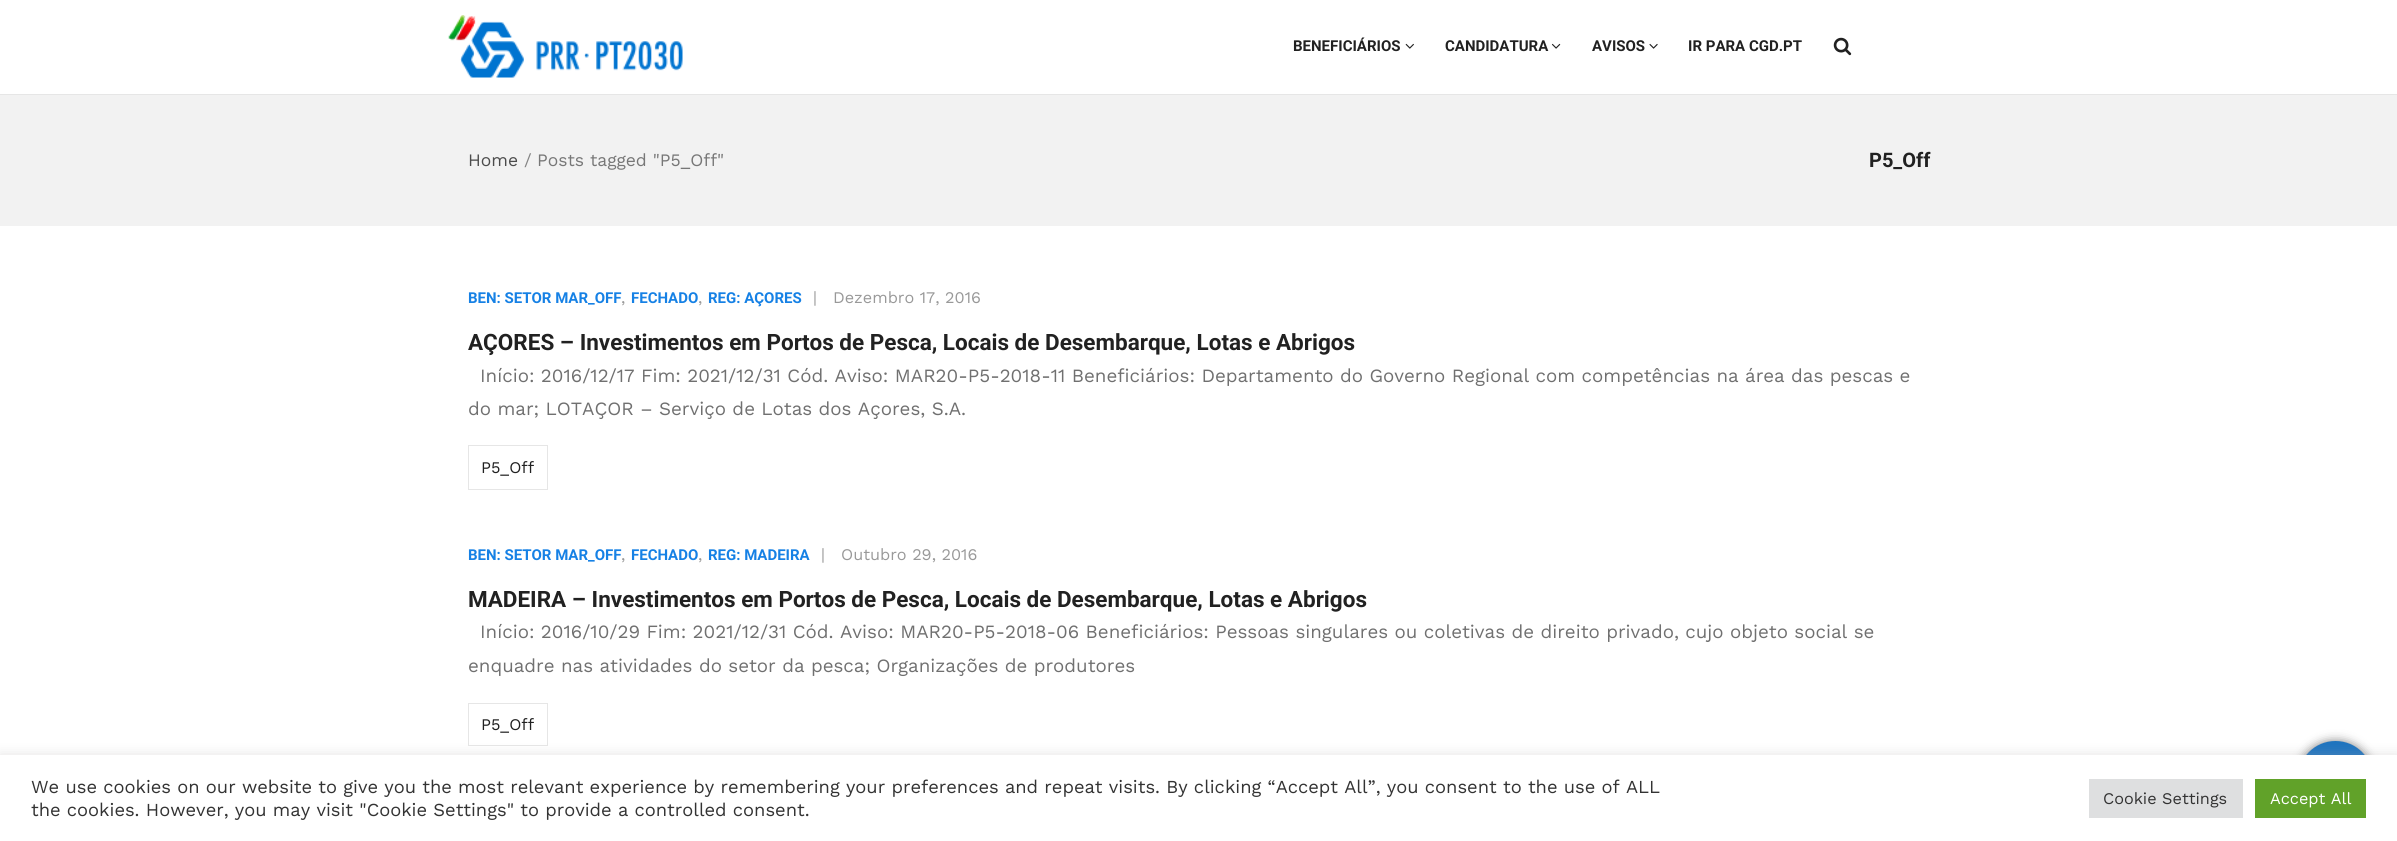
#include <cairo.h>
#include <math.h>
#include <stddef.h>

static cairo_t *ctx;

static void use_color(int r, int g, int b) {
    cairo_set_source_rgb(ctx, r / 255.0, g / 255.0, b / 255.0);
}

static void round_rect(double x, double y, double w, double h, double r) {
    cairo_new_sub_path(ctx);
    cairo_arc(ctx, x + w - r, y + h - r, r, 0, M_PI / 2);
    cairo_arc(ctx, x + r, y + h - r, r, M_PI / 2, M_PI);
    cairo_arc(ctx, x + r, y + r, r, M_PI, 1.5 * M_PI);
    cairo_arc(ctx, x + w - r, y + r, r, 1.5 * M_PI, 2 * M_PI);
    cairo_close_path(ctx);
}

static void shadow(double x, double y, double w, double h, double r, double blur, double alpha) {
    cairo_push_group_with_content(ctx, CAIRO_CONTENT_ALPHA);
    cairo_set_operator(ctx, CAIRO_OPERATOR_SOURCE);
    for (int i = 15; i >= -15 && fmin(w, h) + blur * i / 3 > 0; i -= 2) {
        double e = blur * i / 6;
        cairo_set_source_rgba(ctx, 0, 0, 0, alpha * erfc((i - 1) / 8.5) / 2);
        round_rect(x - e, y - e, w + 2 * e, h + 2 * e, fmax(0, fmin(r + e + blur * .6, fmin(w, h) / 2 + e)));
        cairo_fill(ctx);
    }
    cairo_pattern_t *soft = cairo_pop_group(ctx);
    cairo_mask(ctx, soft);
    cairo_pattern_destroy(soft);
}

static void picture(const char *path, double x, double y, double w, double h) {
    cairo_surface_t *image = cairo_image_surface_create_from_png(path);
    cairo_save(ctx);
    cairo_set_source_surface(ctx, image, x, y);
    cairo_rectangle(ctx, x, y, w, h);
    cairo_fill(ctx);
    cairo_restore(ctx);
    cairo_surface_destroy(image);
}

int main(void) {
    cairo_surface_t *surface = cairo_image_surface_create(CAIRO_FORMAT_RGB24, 2397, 841);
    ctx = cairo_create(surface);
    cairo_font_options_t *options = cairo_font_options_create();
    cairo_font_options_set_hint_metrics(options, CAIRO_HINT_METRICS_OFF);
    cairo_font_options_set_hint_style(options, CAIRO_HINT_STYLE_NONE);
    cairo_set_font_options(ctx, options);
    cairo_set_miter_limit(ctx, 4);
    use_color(255, 255, 255);
    cairo_paint(ctx);
    use_color(230, 230, 230);
    cairo_rectangle(ctx, 0, 94, 2397, 1);
    cairo_fill(ctx);
    picture("img1.png", 448, 15, 235, 63);
    cairo_select_font_face(ctx, "Roboto", CAIRO_FONT_SLANT_NORMAL, CAIRO_FONT_WEIGHT_BOLD);
    cairo_set_font_size(ctx, 15);
    use_color(33, 33, 33);
    cairo_move_to(ctx, 1293, 51);
    cairo_show_text(ctx, "BENEFICIÁRIOS");
    picture("img2.png", 1405, 43, 9, 6);
    cairo_move_to(ctx, 1445, 51);
    cairo_show_text(ctx, "CANDIDATURA");
    picture("img3.png", 1551, 43, 10, 6);
    cairo_move_to(ctx, 1592, 51);
    cairo_show_text(ctx, "AVISOS");
    picture("img4.png", 1649, 43, 9, 6);
    cairo_move_to(ctx, 1688, 51);
    cairo_show_text(ctx, "IR PARA CGD.PT");
    picture("img5.png", 1833, 37, 19, 19);
    use_color(242, 242, 242);
    cairo_rectangle(ctx, 0, 95, 2397, 131);
    cairo_fill(ctx);
    cairo_select_font_face(ctx, "Work Sans", CAIRO_FONT_SLANT_NORMAL, CAIRO_FONT_WEIGHT_NORMAL);
    cairo_set_font_size(ctx, 17.5);
    use_color(76, 76, 76);
    cairo_move_to(ctx, 468, 166);
    cairo_show_text(ctx, "Home");
    use_color(133, 133, 133);
    cairo_move_to(ctx, 524, 166);
    cairo_show_text(ctx, "/");
    use_color(119, 119, 119);
    cairo_move_to(ctx, 537, 166);
    cairo_show_text(ctx, "Posts tagged \"P5_Off\"");
    cairo_select_font_face(ctx, "Roboto", CAIRO_FONT_SLANT_NORMAL, CAIRO_FONT_WEIGHT_BOLD);
    cairo_set_font_size(ctx, 20);
    use_color(33, 33, 33);
    cairo_move_to(ctx, 1869, 167);
    cairo_show_text(ctx, "P5_Off");
    cairo_set_font_size(ctx, 15);
    use_color(22, 129, 229);
    cairo_move_to(ctx, 468, 303);
    cairo_show_text(ctx, "BEN: SETOR MAR_OFF");
    cairo_select_font_face(ctx, "Work Sans", CAIRO_FONT_SLANT_NORMAL, CAIRO_FONT_WEIGHT_NORMAL);
    cairo_set_font_size(ctx, 16.25);
    use_color(153, 153, 153);
    cairo_move_to(ctx, 621, 303);
    cairo_show_text(ctx, ",");
    cairo_select_font_face(ctx, "Roboto", CAIRO_FONT_SLANT_NORMAL, CAIRO_FONT_WEIGHT_BOLD);
    cairo_set_font_size(ctx, 15);
    use_color(22, 129, 229);
    cairo_move_to(ctx, 631, 303);
    cairo_show_text(ctx, "FECHADO");
    cairo_select_font_face(ctx, "Work Sans", CAIRO_FONT_SLANT_NORMAL, CAIRO_FONT_WEIGHT_NORMAL);
    cairo_set_font_size(ctx, 16.25);
    use_color(153, 153, 153);
    cairo_move_to(ctx, 698, 303);
    cairo_show_text(ctx, ",");
    cairo_select_font_face(ctx, "Roboto", CAIRO_FONT_SLANT_NORMAL, CAIRO_FONT_WEIGHT_BOLD);
    cairo_set_font_size(ctx, 15);
    use_color(22, 129, 229);
    cairo_move_to(ctx, 708, 303);
    cairo_show_text(ctx, "REG: AÇORES");
    cairo_select_font_face(ctx, "Work Sans", CAIRO_FONT_SLANT_NORMAL, CAIRO_FONT_WEIGHT_NORMAL);
    cairo_set_font_size(ctx, 16.25);
    use_color(153, 153, 153);
    cairo_move_to(ctx, 813, 303);
    cairo_show_text(ctx, "|");
    cairo_move_to(ctx, 833, 303);
    cairo_show_text(ctx, "Dezembro 17, 2016");
    cairo_select_font_face(ctx, "Roboto", CAIRO_FONT_SLANT_NORMAL, CAIRO_FONT_WEIGHT_BOLD);
    cairo_set_font_size(ctx, 22.5);
    use_color(33, 33, 33);
    cairo_move_to(ctx, 468, 350);
    cairo_show_text(ctx, "AÇORES – Investimentos em Portos de Pesca, Locais de Desembarque, Lotas e Abrigos");
    cairo_select_font_face(ctx, "Work Sans", CAIRO_FONT_SLANT_NORMAL, CAIRO_FONT_WEIGHT_NORMAL);
    cairo_set_font_size(ctx, 18.75);
    use_color(112, 112, 112);
    cairo_move_to(ctx, 480, 382);
    cairo_show_text(ctx, "Início: 2016/12/17 Fim: 2021/12/31 Cód. Aviso: MAR20-P5-2018-11 Beneficiários: Departamento do Governo Regional com competências na área das pescas e");
    cairo_move_to(ctx, 468, 415);
    cairo_show_text(ctx, "do mar; LOTAÇOR – Serviço de Lotas dos Açores, S.A.");
    cairo_rectangle(ctx, 468.5, 445.5, 79, 44);
    use_color(230, 230, 230);
    cairo_set_line_width(ctx, 1);
    cairo_stroke(ctx);
    cairo_set_font_size(ctx, 16.25);
    use_color(33, 33, 33);
    cairo_move_to(ctx, 481, 473);
    cairo_show_text(ctx, "P5_Off");
    cairo_select_font_face(ctx, "Roboto", CAIRO_FONT_SLANT_NORMAL, CAIRO_FONT_WEIGHT_BOLD);
    cairo_set_font_size(ctx, 15);
    use_color(22, 129, 229);
    cairo_move_to(ctx, 468, 560);
    cairo_show_text(ctx, "BEN: SETOR MAR_OFF");
    cairo_select_font_face(ctx, "Work Sans", CAIRO_FONT_SLANT_NORMAL, CAIRO_FONT_WEIGHT_NORMAL);
    cairo_set_font_size(ctx, 16.25);
    use_color(153, 153, 153);
    cairo_move_to(ctx, 621, 560);
    cairo_show_text(ctx, ",");
    cairo_select_font_face(ctx, "Roboto", CAIRO_FONT_SLANT_NORMAL, CAIRO_FONT_WEIGHT_BOLD);
    cairo_set_font_size(ctx, 15);
    use_color(22, 129, 229);
    cairo_move_to(ctx, 631, 560);
    cairo_show_text(ctx, "FECHADO");
    cairo_select_font_face(ctx, "Work Sans", CAIRO_FONT_SLANT_NORMAL, CAIRO_FONT_WEIGHT_NORMAL);
    cairo_set_font_size(ctx, 16.25);
    use_color(153, 153, 153);
    cairo_move_to(ctx, 698, 560);
    cairo_show_text(ctx, ",");
    cairo_select_font_face(ctx, "Roboto", CAIRO_FONT_SLANT_NORMAL, CAIRO_FONT_WEIGHT_BOLD);
    cairo_set_font_size(ctx, 15);
    use_color(22, 129, 229);
    cairo_move_to(ctx, 708, 560);
    cairo_show_text(ctx, "REG: MADEIRA");
    cairo_select_font_face(ctx, "Work Sans", CAIRO_FONT_SLANT_NORMAL, CAIRO_FONT_WEIGHT_NORMAL);
    cairo_set_font_size(ctx, 16.25);
    use_color(153, 153, 153);
    cairo_move_to(ctx, 821, 560);
    cairo_show_text(ctx, "|");
    cairo_move_to(ctx, 841, 560);
    cairo_show_text(ctx, "Outubro 29, 2016");
    cairo_select_font_face(ctx, "Roboto", CAIRO_FONT_SLANT_NORMAL, CAIRO_FONT_WEIGHT_BOLD);
    cairo_set_font_size(ctx, 22.5);
    use_color(33, 33, 33);
    cairo_move_to(ctx, 468, 607);
    cairo_show_text(ctx, "MADEIRA – Investimentos em Portos de Pesca, Locais de Desembarque, Lotas e Abrigos");
    cairo_select_font_face(ctx, "Work Sans", CAIRO_FONT_SLANT_NORMAL, CAIRO_FONT_WEIGHT_NORMAL);
    cairo_set_font_size(ctx, 18.75);
    use_color(112, 112, 112);
    cairo_move_to(ctx, 480, 638);
    cairo_show_text(ctx, "Início: 2016/10/29 Fim: 2021/12/31 Cód. Aviso: MAR20-P5-2018-06 Beneficiários: Pessoas singulares ou coletivas de direito privado, cujo objeto social se");
    cairo_move_to(ctx, 468, 672);
    cairo_show_text(ctx, "enquadre nas atividades do setor da pesca; Organizações de produtores");
    cairo_rectangle(ctx, 468.5, 703.5, 79, 42);
    use_color(230, 230, 230);
    cairo_stroke(ctx);
    cairo_set_font_size(ctx, 16.25);
    use_color(33, 33, 33);
    cairo_move_to(ctx, 481, 730);
    cairo_show_text(ctx, "P5_Off");
    use_color(0, 0, 0);
    shadow(2298, 741, 75, 75, 37.5, 5, 0.5);
    use_color(30, 115, 190);
    cairo_arc(ctx, 2335.5, 778.5, 37.5, 0, 2 * M_PI);
    cairo_fill(ctx);
    use_color(172, 171, 171);
    shadow(0, 754, 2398, 86, 0, 6, 0.3);
    use_color(255, 255, 255);
    cairo_rectangle(ctx, 0, 755, 2397, 86);
    cairo_fill(ctx);
    cairo_set_font_size(ctx, 18.33);
    use_color(51, 51, 51);
    cairo_move_to(ctx, 31, 793);
    cairo_show_text(ctx, "We use cookies on our website to give you the most relevant experience by remembering your preferences and repeat visits. By clicking “Accept All”, you consent to the use of ALL");
    cairo_move_to(ctx, 31, 816);
    cairo_show_text(ctx, "the cookies. However, you may visit \"Cookie Settings\" to provide a controlled consent.");
    use_color(222, 223, 224);
    cairo_rectangle(ctx, 2089, 779, 154, 39);
    cairo_fill(ctx);
    cairo_set_font_size(ctx, 16.25);
    use_color(51, 51, 51);
    cairo_move_to(ctx, 2103, 804);
    cairo_show_text(ctx, "Cookie Settings");
    use_color(97, 162, 41);
    cairo_rectangle(ctx, 2255, 779, 111, 39);
    cairo_fill(ctx);
    use_color(255, 255, 255);
    cairo_move_to(ctx, 2270, 804);
    cairo_show_text(ctx, "Accept All");
    cairo_surface_write_to_png(surface, "result.png");
    cairo_font_options_destroy(options);
    cairo_destroy(ctx);
    cairo_surface_destroy(surface);
    return 0;
}
